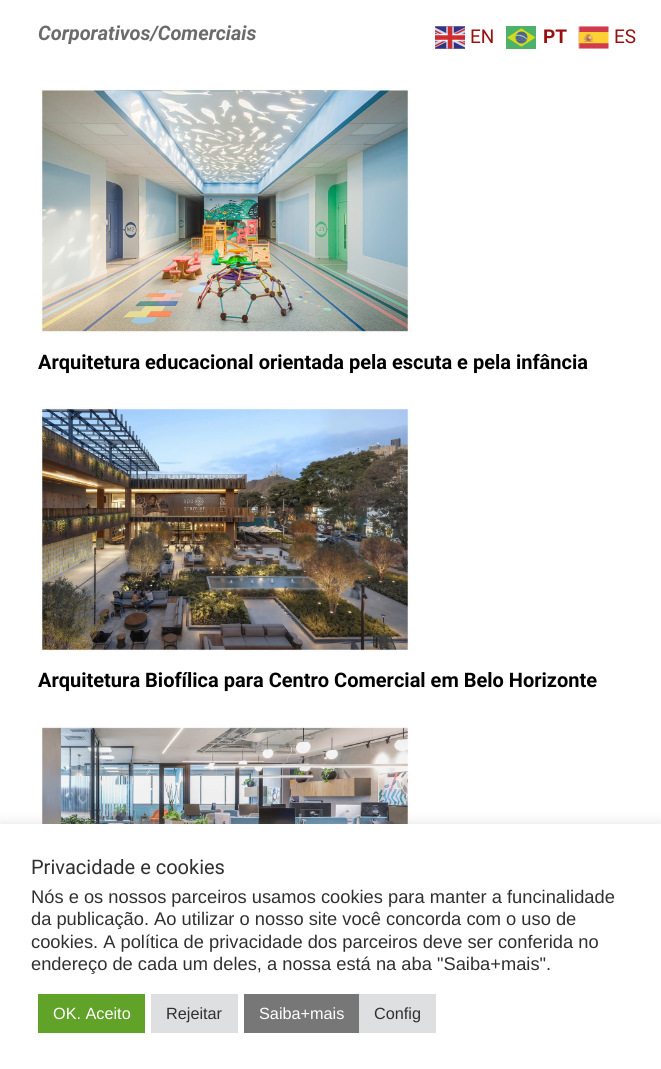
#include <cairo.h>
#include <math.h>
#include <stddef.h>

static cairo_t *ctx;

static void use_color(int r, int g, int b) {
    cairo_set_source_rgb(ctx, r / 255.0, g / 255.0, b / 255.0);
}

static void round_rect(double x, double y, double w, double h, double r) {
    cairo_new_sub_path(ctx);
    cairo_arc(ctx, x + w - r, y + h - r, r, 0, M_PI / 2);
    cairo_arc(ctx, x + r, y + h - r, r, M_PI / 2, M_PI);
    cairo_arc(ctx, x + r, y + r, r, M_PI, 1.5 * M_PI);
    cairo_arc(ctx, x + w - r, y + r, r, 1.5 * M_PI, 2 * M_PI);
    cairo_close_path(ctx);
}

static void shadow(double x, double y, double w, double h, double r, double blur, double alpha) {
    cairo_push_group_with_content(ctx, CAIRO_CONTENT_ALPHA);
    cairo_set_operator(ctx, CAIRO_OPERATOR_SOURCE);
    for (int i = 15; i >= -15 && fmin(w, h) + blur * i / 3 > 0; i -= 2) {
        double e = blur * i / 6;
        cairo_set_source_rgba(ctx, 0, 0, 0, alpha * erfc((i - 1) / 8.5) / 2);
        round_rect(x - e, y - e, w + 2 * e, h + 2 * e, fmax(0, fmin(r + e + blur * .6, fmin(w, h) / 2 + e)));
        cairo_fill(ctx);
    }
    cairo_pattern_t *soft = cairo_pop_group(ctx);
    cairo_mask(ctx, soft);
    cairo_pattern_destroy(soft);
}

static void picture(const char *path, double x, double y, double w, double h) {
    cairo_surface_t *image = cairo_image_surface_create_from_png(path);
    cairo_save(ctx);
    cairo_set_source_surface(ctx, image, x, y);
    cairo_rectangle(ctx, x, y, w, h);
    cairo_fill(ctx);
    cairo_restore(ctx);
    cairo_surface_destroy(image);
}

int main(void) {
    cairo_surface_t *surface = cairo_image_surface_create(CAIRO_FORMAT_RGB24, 661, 1069);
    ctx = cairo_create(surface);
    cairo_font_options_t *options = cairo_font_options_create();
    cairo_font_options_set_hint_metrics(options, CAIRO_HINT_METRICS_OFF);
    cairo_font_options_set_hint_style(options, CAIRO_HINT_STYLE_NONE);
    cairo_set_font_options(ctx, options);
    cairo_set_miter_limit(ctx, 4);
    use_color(255, 255, 255);
    cairo_paint(ctx);
    cairo_select_font_face(ctx, "Roboto", CAIRO_FONT_SLANT_ITALIC, CAIRO_FONT_WEIGHT_BOLD);
    cairo_set_font_size(ctx, 20);
    use_color(107, 107, 107);
    cairo_move_to(ctx, 38, 40);
    cairo_show_text(ctx, "Corporativos/Comerciais");
    picture("img1.png", 40, 87, 370, 246);
    cairo_select_font_face(ctx, "Roboto", CAIRO_FONT_SLANT_NORMAL, CAIRO_FONT_WEIGHT_BOLD);
    use_color(0, 0, 0);
    cairo_move_to(ctx, 38, 369);
    cairo_show_text(ctx, "Arquitetura educacional orientada pela escuta e pela infância");
    picture("img2.png", 40, 407, 370, 245);
    cairo_move_to(ctx, 38, 687);
    cairo_show_text(ctx, "Arquitetura Biofílica para Centro Comercial em Belo Horizonte");
    picture("img3.png", 40, 726, 370, 98);
    picture("img4.png", 435, 26, 30, 23);
    cairo_select_font_face(ctx, "Roboto", CAIRO_FONT_SLANT_NORMAL, CAIRO_FONT_WEIGHT_NORMAL);
    cairo_set_font_size(ctx, 19);
    use_color(152, 15, 15);
    cairo_move_to(ctx, 470, 43);
    cairo_show_text(ctx, "EN");
    picture("img5.png", 506, 26, 30, 23);
    cairo_select_font_face(ctx, "Roboto", CAIRO_FONT_SLANT_NORMAL, CAIRO_FONT_WEIGHT_BOLD);
    cairo_move_to(ctx, 543, 43);
    cairo_show_text(ctx, "PT");
    picture("img6.png", 578, 26, 31, 23);
    cairo_select_font_face(ctx, "Roboto", CAIRO_FONT_SLANT_NORMAL, CAIRO_FONT_WEIGHT_NORMAL);
    cairo_move_to(ctx, 614, 43);
    cairo_show_text(ctx, "ES");
    use_color(172, 171, 171);
    shadow(0, 823, 661, 246, 0, 6, 0.3);
    use_color(255, 255, 255);
    cairo_rectangle(ctx, 0, 824, 661, 245);
    cairo_fill(ctx);
    cairo_set_font_size(ctx, 20);
    use_color(48, 48, 48);
    cairo_move_to(ctx, 31, 874);
    cairo_show_text(ctx, "Privacidade e cookies");
    cairo_select_font_face(ctx, "Liberation Sans", CAIRO_FONT_SLANT_NORMAL, CAIRO_FONT_WEIGHT_NORMAL);
    cairo_set_font_size(ctx, 18.3);
    cairo_move_to(ctx, 31, 903);
    cairo_show_text(ctx, "Nós e os nossos parceiros usamos cookies para manter a funcinalidade");
    cairo_move_to(ctx, 31, 925);
    cairo_show_text(ctx, "da publicação. Ao utilizar o nosso site você concorda com o uso de");
    cairo_move_to(ctx, 31, 948);
    cairo_show_text(ctx, "cookies. A política de privacidade dos parceiros deve ser conferida no");
    cairo_move_to(ctx, 31, 970);
    cairo_show_text(ctx, "endereço de cada um deles, a nossa está na aba \"Saiba+mais\".");
    use_color(97, 162, 41);
    cairo_rectangle(ctx, 38, 994, 107, 39);
    cairo_fill(ctx);
    cairo_set_font_size(ctx, 16.25);
    use_color(255, 255, 255);
    cairo_move_to(ctx, 53, 1019);
    cairo_show_text(ctx, "OK. Aceito");
    use_color(222, 223, 224);
    cairo_rectangle(ctx, 151, 994, 87, 39);
    cairo_fill(ctx);
    use_color(48, 48, 48);
    cairo_move_to(ctx, 166, 1019);
    cairo_show_text(ctx, "Rejeitar");
    use_color(119, 119, 119);
    cairo_rectangle(ctx, 244, 994, 115, 39);
    cairo_fill(ctx);
    use_color(255, 255, 255);
    cairo_move_to(ctx, 259, 1019);
    cairo_show_text(ctx, "Saiba+mais");
    use_color(222, 223, 224);
    cairo_rectangle(ctx, 359, 994, 77, 39);
    cairo_fill(ctx);
    use_color(48, 48, 48);
    cairo_move_to(ctx, 374, 1019);
    cairo_show_text(ctx, "Config");
    cairo_surface_write_to_png(surface, "result.png");
    cairo_font_options_destroy(options);
    cairo_destroy(ctx);
    cairo_surface_destroy(surface);
    return 0;
}
